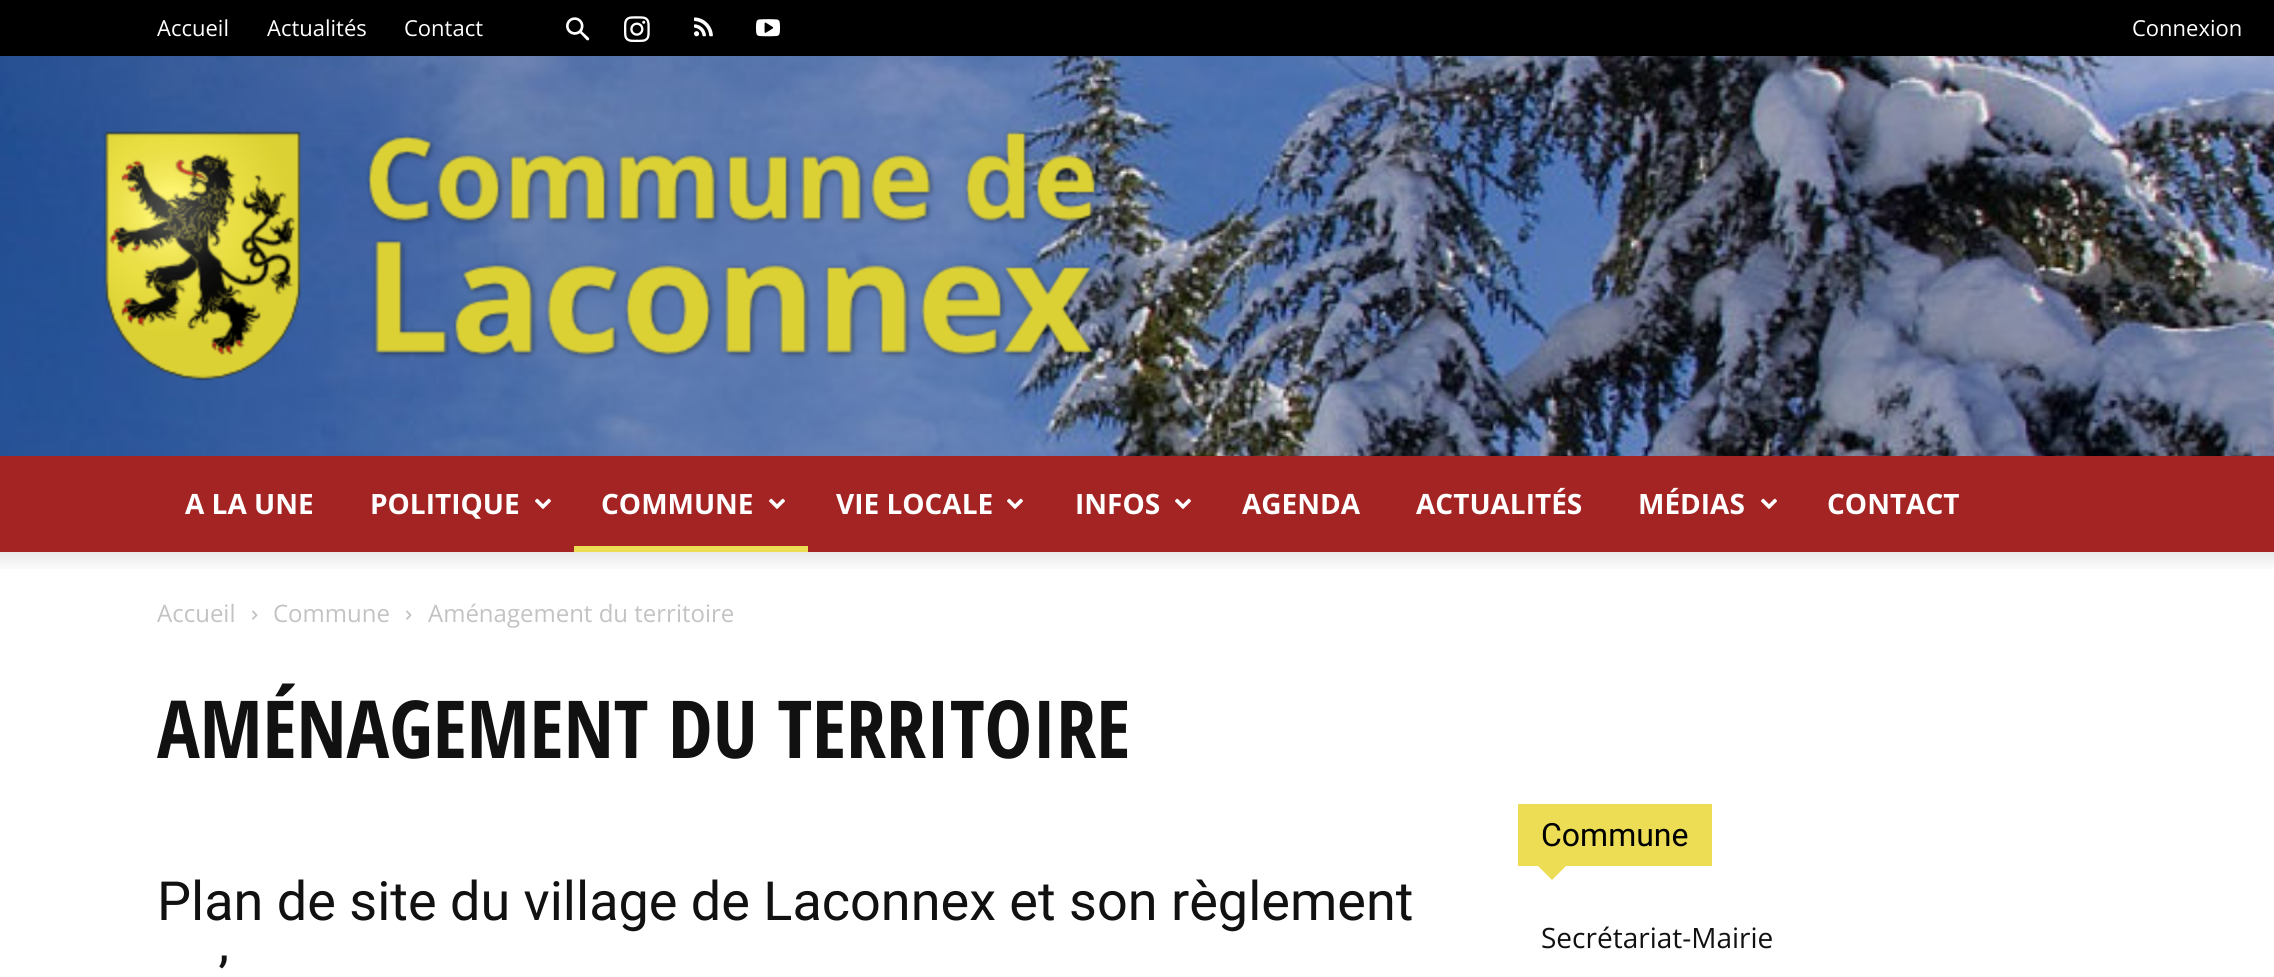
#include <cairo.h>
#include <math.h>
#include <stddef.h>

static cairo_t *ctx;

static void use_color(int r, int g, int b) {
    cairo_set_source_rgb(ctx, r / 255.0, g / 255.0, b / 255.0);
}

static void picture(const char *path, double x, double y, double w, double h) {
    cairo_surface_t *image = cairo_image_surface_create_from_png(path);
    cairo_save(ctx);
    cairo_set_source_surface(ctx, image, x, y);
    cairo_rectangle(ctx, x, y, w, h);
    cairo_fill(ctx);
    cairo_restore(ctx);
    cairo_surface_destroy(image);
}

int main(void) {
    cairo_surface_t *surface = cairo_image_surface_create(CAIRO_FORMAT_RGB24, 2274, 977);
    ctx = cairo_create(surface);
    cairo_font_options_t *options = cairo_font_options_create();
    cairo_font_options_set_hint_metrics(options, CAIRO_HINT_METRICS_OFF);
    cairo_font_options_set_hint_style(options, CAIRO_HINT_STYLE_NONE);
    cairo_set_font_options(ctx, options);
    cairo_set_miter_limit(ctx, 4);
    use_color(255, 255, 255);
    cairo_paint(ctx);
    use_color(0, 0, 0);
    cairo_rectangle(ctx, 0, 0, 2274, 56);
    cairo_fill(ctx);
    picture("img1.png", 566, 17, 24, 24);
    picture("img2.png", 624, 16, 26, 26);
    picture("img3.png", 694, 17, 19, 20);
    picture("img4.png", 756, 19, 24, 18);
    cairo_select_font_face(ctx, "Open Sans", CAIRO_FONT_SLANT_NORMAL, CAIRO_FONT_WEIGHT_NORMAL);
    cairo_set_font_size(ctx, 22);
    use_color(255, 255, 255);
    cairo_move_to(ctx, 157, 36);
    cairo_show_text(ctx, "Accueil");
    cairo_move_to(ctx, 267, 36);
    cairo_show_text(ctx, "Actualités");
    cairo_move_to(ctx, 404, 36);
    cairo_show_text(ctx, "Contact");
    cairo_move_to(ctx, 2132, 36);
    cairo_show_text(ctx, "Connexion");
    picture("img5.png", 0, 56, 2274, 400);
    picture("img6.png", 103, 130, 997, 251);
    use_color(164, 36, 36);
    cairo_rectangle(ctx, 0, 456, 2274, 96);
    cairo_fill(ctx);
    cairo_select_font_face(ctx, "Open Sans", CAIRO_FONT_SLANT_NORMAL, CAIRO_FONT_WEIGHT_BOLD);
    cairo_set_font_size(ctx, 28);
    use_color(255, 255, 255);
    cairo_move_to(ctx, 185, 514);
    cairo_show_text(ctx, "A LA UNE");
    cairo_move_to(ctx, 370, 514);
    cairo_show_text(ctx, "POLITIQUE");
    picture("img7.png", 535, 498, 16, 11);
    cairo_move_to(ctx, 601, 514);
    cairo_show_text(ctx, "COMMUNE");
    picture("img7.png", 769, 498, 16, 11);
    use_color(236, 221, 85);
    cairo_rectangle(ctx, 574, 546, 234, 6);
    cairo_fill(ctx);
    use_color(255, 255, 255);
    cairo_move_to(ctx, 836, 514);
    cairo_show_text(ctx, "VIE LOCALE");
    picture("img7.png", 1007, 498, 16, 11);
    cairo_move_to(ctx, 1075, 514);
    cairo_show_text(ctx, "INFOS");
    picture("img7.png", 1175, 498, 16, 11);
    cairo_move_to(ctx, 1242, 514);
    cairo_show_text(ctx, "AGENDA");
    cairo_move_to(ctx, 1416, 514);
    cairo_show_text(ctx, "ACTUALITÉS");
    cairo_move_to(ctx, 1638, 514);
    cairo_show_text(ctx, "MÉDIAS");
    picture("img7.png", 1761, 498, 16, 11);
    cairo_move_to(ctx, 1827, 514);
    cairo_show_text(ctx, "CONTACT");
    picture("img8.png", 0, 552, 2274, 17);
    cairo_select_font_face(ctx, "Open Sans", CAIRO_FONT_SLANT_NORMAL, CAIRO_FONT_WEIGHT_NORMAL);
    cairo_set_font_size(ctx, 24);
    use_color(195, 195, 195);
    cairo_move_to(ctx, 157, 622);
    cairo_show_text(ctx, "Accueil");
    picture("img9.png", 252, 610, 6, 10);
    cairo_move_to(ctx, 273, 622);
    cairo_show_text(ctx, "Commune");
    picture("img9.png", 406, 610, 6, 10);
    cairo_move_to(ctx, 428, 622);
    cairo_show_text(ctx, "Aménagement du territoire");
    cairo_select_font_face(ctx, "Open Sans Condensed", CAIRO_FONT_SLANT_NORMAL, CAIRO_FONT_WEIGHT_BOLD);
    cairo_set_font_size(ctx, 80);
    use_color(17, 17, 17);
    cairo_move_to(ctx, 157, 758);
    cairo_show_text(ctx, "AMÉNAGEMENT DU TERRITOIRE");
    cairo_select_font_face(ctx, "Roboto", CAIRO_FONT_SLANT_NORMAL, CAIRO_FONT_WEIGHT_NORMAL);
    cairo_set_font_size(ctx, 54);
    cairo_move_to(ctx, 157, 920);
    cairo_show_text(ctx, "Plan de site du village de Laconnex et son règlement");
    cairo_move_to(ctx, 218, 996);
    cairo_show_text(ctx, "’");
    use_color(236, 221, 85);
    cairo_rectangle(ctx, 1518, 804, 194, 62);
    cairo_fill(ctx);
    cairo_set_font_size(ctx, 32);
    use_color(0, 0, 0);
    cairo_move_to(ctx, 1541, 846);
    cairo_show_text(ctx, "Commune");
    use_color(236, 221, 85);
    cairo_new_path(ctx);
    cairo_move_to(ctx, 1538, 866);
    cairo_line_to(ctx, 1566, 866);
    cairo_line_to(ctx, 1552, 880);
    cairo_close_path(ctx);
    cairo_fill(ctx);
    cairo_select_font_face(ctx, "Open Sans", CAIRO_FONT_SLANT_NORMAL, CAIRO_FONT_WEIGHT_NORMAL);
    cairo_set_font_size(ctx, 28);
    use_color(17, 17, 17);
    cairo_move_to(ctx, 1541, 948);
    cairo_show_text(ctx, "Secrétariat-Mairie");
    cairo_surface_write_to_png(surface, "result.png");
    cairo_font_options_destroy(options);
    cairo_destroy(ctx);
    cairo_surface_destroy(surface);
    return 0;
}
